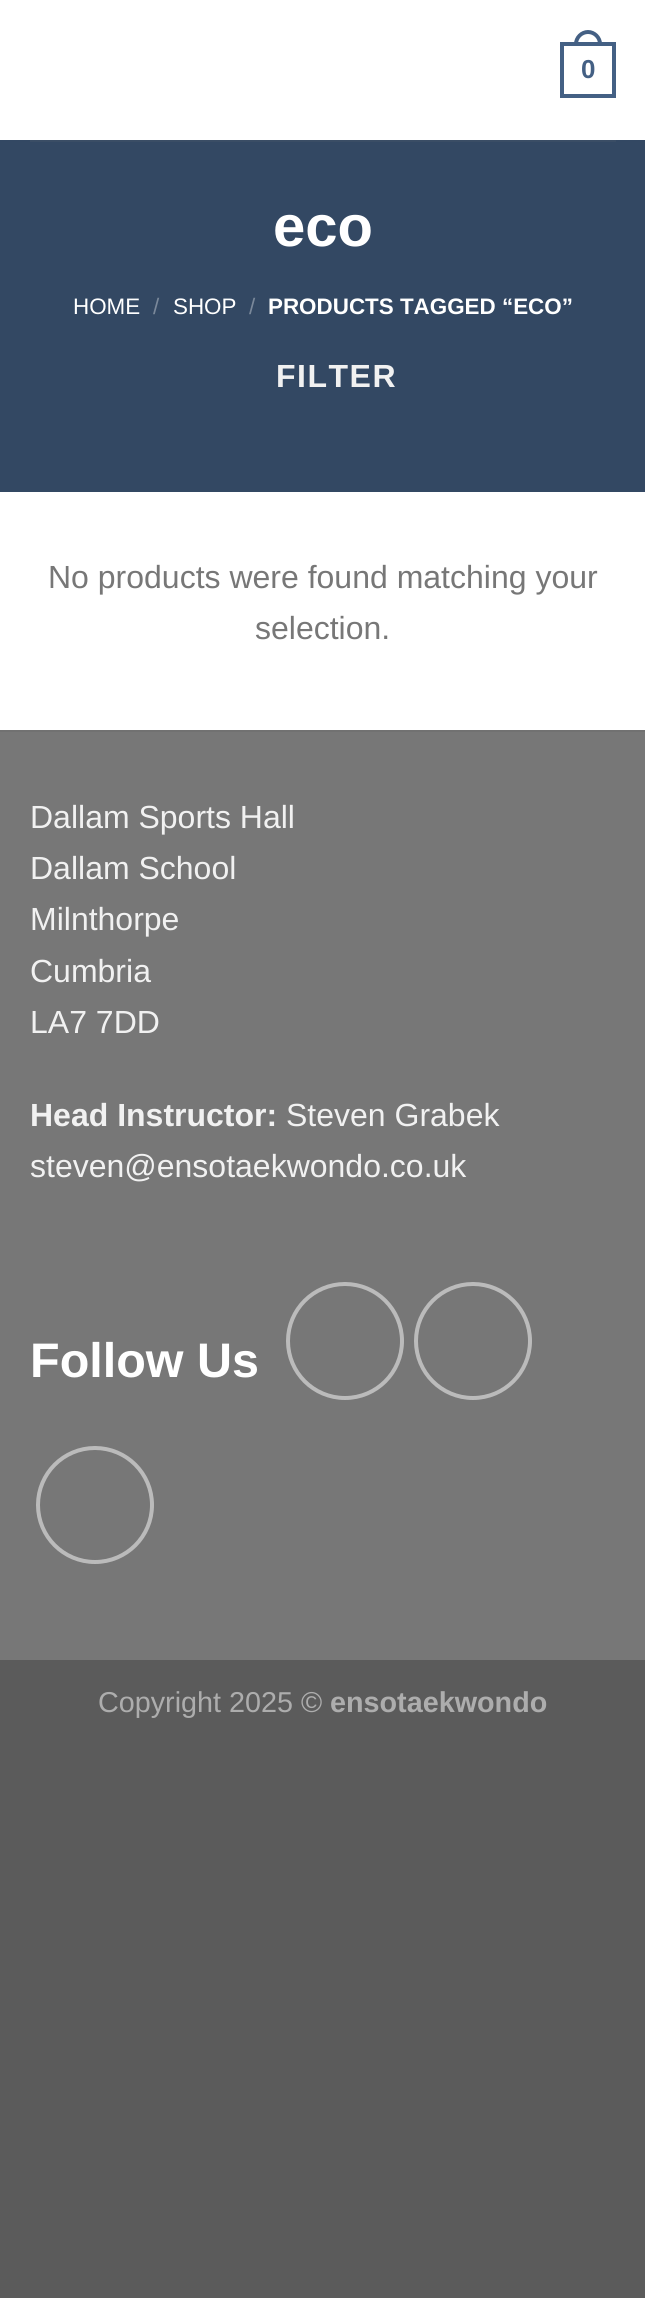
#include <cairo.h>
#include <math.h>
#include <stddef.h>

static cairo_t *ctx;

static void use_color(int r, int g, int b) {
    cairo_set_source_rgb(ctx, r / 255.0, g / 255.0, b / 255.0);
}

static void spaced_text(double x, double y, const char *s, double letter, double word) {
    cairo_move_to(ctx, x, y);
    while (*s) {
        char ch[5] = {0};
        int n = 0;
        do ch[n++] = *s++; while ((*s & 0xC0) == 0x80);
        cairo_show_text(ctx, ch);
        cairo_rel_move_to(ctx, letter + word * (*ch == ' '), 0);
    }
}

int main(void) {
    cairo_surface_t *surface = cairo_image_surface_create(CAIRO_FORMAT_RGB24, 645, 2298);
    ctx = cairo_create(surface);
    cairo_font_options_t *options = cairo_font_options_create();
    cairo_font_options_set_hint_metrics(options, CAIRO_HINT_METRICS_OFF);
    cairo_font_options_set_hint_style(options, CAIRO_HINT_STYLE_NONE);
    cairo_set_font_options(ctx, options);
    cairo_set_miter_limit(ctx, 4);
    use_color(91, 91, 91);
    cairo_paint(ctx);
    use_color(255, 255, 255);
    cairo_rectangle(ctx, 0, 0, 645, 730);
    cairo_fill(ctx);
    cairo_rectangle(ctx, 562, 44, 52, 52);
    use_color(68, 96, 132);
    cairo_set_line_width(ctx, 4);
    cairo_stroke(ctx);
    cairo_set_fill_rule(ctx, CAIRO_FILL_RULE_EVEN_ODD);
    cairo_new_path(ctx);
    cairo_move_to(ctx, 588, 30);
    cairo_curve_to(ctx, 595.5, 30, 602, 36.5, 602, 44);
    cairo_line_to(ctx, 602, 46);
    cairo_line_to(ctx, 574, 46);
    cairo_line_to(ctx, 574, 44);
    cairo_curve_to(ctx, 574, 36.5, 580.5, 30, 588, 30);
    cairo_close_path(ctx);
    cairo_move_to(ctx, 588, 34);
    cairo_curve_to(ctx, 593.5, 34, 598, 38.5, 598, 44);
    cairo_line_to(ctx, 598, 46);
    cairo_line_to(ctx, 578, 46);
    cairo_line_to(ctx, 578, 44);
    cairo_curve_to(ctx, 578, 38.5, 582.5, 34, 588, 34);
    cairo_close_path(ctx);
    cairo_fill(ctx);
    cairo_select_font_face(ctx, "Liberation Sans", CAIRO_FONT_SLANT_NORMAL, CAIRO_FONT_WEIGHT_BOLD);
    cairo_set_font_size(ctx, 26);
    cairo_move_to(ctx, 581, 78);
    cairo_show_text(ctx, "0");
    use_color(51, 72, 99);
    cairo_rectangle(ctx, 0, 140, 645, 352);
    cairo_fill(ctx);
    use_color(58, 77, 101);
    cairo_rectangle(ctx, 30, 140, 586, 2);
    cairo_fill(ctx);
    cairo_set_font_size(ctx, 58);
    use_color(255, 255, 255);
    cairo_move_to(ctx, 273, 246);
    cairo_show_text(ctx, "eco");
    cairo_select_font_face(ctx, "Liberation Sans", CAIRO_FONT_SLANT_NORMAL, CAIRO_FONT_WEIGHT_NORMAL);
    cairo_set_font_size(ctx, 22.4);
    cairo_move_to(ctx, 73, 314);
    cairo_show_text(ctx, "HOME");
    use_color(122, 136, 154);
    cairo_move_to(ctx, 153, 314);
    cairo_show_text(ctx, "/");
    use_color(255, 255, 255);
    cairo_move_to(ctx, 173, 314);
    cairo_show_text(ctx, "SHOP");
    use_color(122, 136, 154);
    cairo_move_to(ctx, 249, 314);
    cairo_show_text(ctx, "/");
    cairo_select_font_face(ctx, "Liberation Sans", CAIRO_FONT_SLANT_NORMAL, CAIRO_FONT_WEIGHT_BOLD);
    use_color(255, 255, 255);
    cairo_move_to(ctx, 268, 314);
    cairo_show_text(ctx, "PRODUCTS TAGGED “ECO”");
    cairo_set_font_size(ctx, 32);
    use_color(241, 241, 241);
    spaced_text(276, 387, "FILTER", 1.5, 0);
    cairo_select_font_face(ctx, "Liberation Sans", CAIRO_FONT_SLANT_NORMAL, CAIRO_FONT_WEIGHT_NORMAL);
    use_color(119, 119, 119);
    cairo_move_to(ctx, 48, 588);
    cairo_show_text(ctx, "No products were found matching your");
    cairo_move_to(ctx, 255, 639);
    cairo_show_text(ctx, "selection.");
    cairo_rectangle(ctx, 0, 732, 645, 928);
    cairo_fill(ctx);
    use_color(113, 113, 113);
    cairo_rectangle(ctx, 0, 730, 645, 2);
    cairo_fill(ctx);
    use_color(241, 241, 241);
    cairo_move_to(ctx, 30, 828);
    cairo_show_text(ctx, "Dallam Sports Hall");
    cairo_move_to(ctx, 30, 879);
    cairo_show_text(ctx, "Dallam School");
    cairo_move_to(ctx, 30, 930);
    cairo_show_text(ctx, "Milnthorpe");
    cairo_move_to(ctx, 30, 982);
    cairo_show_text(ctx, "Cumbria");
    cairo_move_to(ctx, 30, 1033);
    cairo_show_text(ctx, "LA7 7DD");
    cairo_select_font_face(ctx, "Liberation Sans", CAIRO_FONT_SLANT_NORMAL, CAIRO_FONT_WEIGHT_BOLD);
    cairo_move_to(ctx, 30, 1126);
    cairo_show_text(ctx, "Head Instructor:");
    cairo_select_font_face(ctx, "Liberation Sans", CAIRO_FONT_SLANT_NORMAL, CAIRO_FONT_WEIGHT_NORMAL);
    cairo_move_to(ctx, 286, 1126);
    cairo_show_text(ctx, "Steven Grabek");
    cairo_move_to(ctx, 30, 1177);
    cairo_show_text(ctx, "steven@ensotaekwondo.co.uk");
    cairo_select_font_face(ctx, "Liberation Sans", CAIRO_FONT_SLANT_NORMAL, CAIRO_FONT_WEIGHT_BOLD);
    cairo_set_font_size(ctx, 48.5);
    use_color(255, 255, 255);
    cairo_move_to(ctx, 30, 1377);
    cairo_show_text(ctx, "Follow Us");
    cairo_new_path(ctx);
    cairo_arc(ctx, 345, 1341, 57, 0, 2 * M_PI);
    use_color(187, 187, 187);
    cairo_stroke(ctx);
    cairo_arc(ctx, 473, 1341, 57, 0, 2 * M_PI);
    cairo_stroke(ctx);
    cairo_arc(ctx, 95, 1505, 57, 0, 2 * M_PI);
    cairo_stroke(ctx);
    cairo_select_font_face(ctx, "Liberation Sans", CAIRO_FONT_SLANT_NORMAL, CAIRO_FONT_WEIGHT_NORMAL);
    cairo_set_font_size(ctx, 28.75);
    use_color(173, 173, 173);
    cairo_move_to(ctx, 98, 1712);
    cairo_show_text(ctx, "Copyright 2025 ©");
    cairo_select_font_face(ctx, "Liberation Sans", CAIRO_FONT_SLANT_NORMAL, CAIRO_FONT_WEIGHT_BOLD);
    cairo_move_to(ctx, 330, 1712);
    cairo_show_text(ctx, "ensotaekwondo");
    cairo_surface_write_to_png(surface, "result.png");
    cairo_font_options_destroy(options);
    cairo_destroy(ctx);
    cairo_surface_destroy(surface);
    return 0;
}
